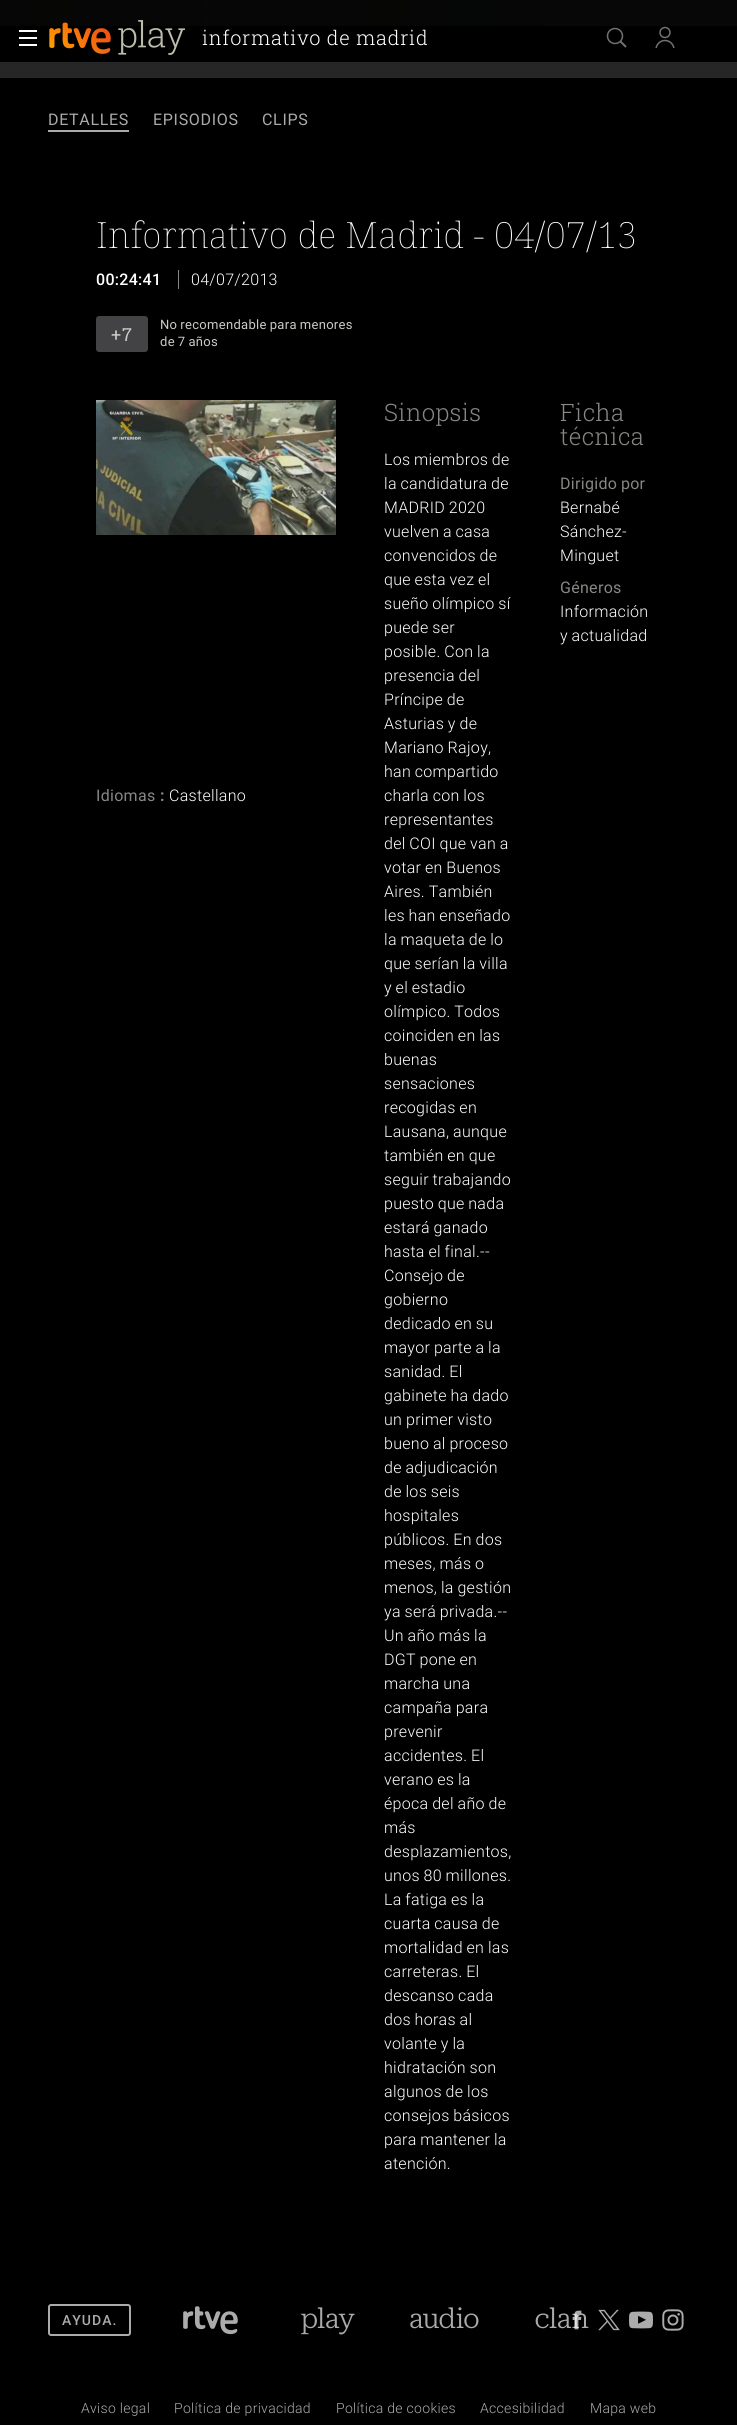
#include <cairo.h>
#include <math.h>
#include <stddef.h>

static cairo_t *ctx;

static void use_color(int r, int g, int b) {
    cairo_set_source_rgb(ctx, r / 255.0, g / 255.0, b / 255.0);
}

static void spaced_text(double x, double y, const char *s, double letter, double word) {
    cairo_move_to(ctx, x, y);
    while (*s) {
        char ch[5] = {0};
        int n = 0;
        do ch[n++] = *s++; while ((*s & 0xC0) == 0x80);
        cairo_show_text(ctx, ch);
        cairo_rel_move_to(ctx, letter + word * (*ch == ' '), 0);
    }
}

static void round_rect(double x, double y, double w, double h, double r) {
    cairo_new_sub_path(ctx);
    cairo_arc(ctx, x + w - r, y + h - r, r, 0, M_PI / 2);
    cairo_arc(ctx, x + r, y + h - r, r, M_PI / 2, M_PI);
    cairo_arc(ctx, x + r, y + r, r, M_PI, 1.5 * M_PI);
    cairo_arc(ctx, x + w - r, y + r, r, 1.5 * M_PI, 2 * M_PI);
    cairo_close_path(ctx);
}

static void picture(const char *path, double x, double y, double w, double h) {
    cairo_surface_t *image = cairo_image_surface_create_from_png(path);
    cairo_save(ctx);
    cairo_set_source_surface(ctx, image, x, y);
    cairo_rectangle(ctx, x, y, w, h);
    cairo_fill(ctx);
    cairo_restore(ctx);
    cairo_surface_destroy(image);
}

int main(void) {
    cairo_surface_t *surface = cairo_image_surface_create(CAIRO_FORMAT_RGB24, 737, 2425);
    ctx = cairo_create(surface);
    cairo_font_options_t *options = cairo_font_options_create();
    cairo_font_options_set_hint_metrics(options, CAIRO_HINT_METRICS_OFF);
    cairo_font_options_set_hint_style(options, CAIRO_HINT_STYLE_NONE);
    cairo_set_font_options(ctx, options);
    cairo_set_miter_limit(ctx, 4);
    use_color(0, 0, 0);
    cairo_paint(ctx);
    use_color(255, 255, 255);
    cairo_rectangle(ctx, 19, 30, 18, 2);
    cairo_fill(ctx);
    cairo_rectangle(ctx, 19, 37, 18, 2);
    cairo_fill(ctx);
    cairo_rectangle(ctx, 19, 44, 18, 2);
    cairo_fill(ctx);
    picture("img4.png", 0, 0, 737, 26);
    picture("img1.png", 49, 22, 62, 32);
    picture("img2.png", 118, 20, 67, 35);
    cairo_select_font_face(ctx, "Roboto Slab Light", CAIRO_FONT_SLANT_NORMAL, CAIRO_FONT_WEIGHT_NORMAL);
    cairo_set_font_size(ctx, 20);
    spaced_text(202, 45, "informativo de madrid", 0.7, 0);
    cairo_new_path(ctx);
    cairo_arc(ctx, 615, 36, 7.5, 0, 2 * M_PI);
    use_color(114, 114, 114);
    cairo_set_line_width(ctx, 1.5);
    cairo_stroke(ctx);
    cairo_new_path(ctx);
    cairo_move_to(ctx, 620.5, 41.5);
    cairo_line_to(ctx, 626, 47);
    cairo_set_line_width(ctx, 2);
    cairo_stroke(ctx);
    picture("img3.png", 655, 26, 20, 22);
    use_color(38, 38, 38);
    cairo_rectangle(ctx, 0, 62, 737, 16);
    cairo_fill(ctx);
    use_color(171, 171, 171);
    cairo_rectangle(ctx, 48, 130, 81, 2);
    cairo_fill(ctx);
    cairo_select_font_face(ctx, "Roboto", CAIRO_FONT_SLANT_NORMAL, CAIRO_FONT_WEIGHT_NORMAL);
    cairo_set_font_size(ctx, 16);
    spaced_text(48, 125, "DETALLES", 0.7, 0);
    spaced_text(153, 125, "EPISODIOS", 0.7, 0);
    spaced_text(262, 125, "CLIPS", 0.7, 0);
    cairo_select_font_face(ctx, "Noto Serif Thin", CAIRO_FONT_SLANT_NORMAL, CAIRO_FONT_WEIGHT_NORMAL);
    cairo_set_font_size(ctx, 36);
    use_color(255, 255, 255);
    spaced_text(96, 248, "Informativo de Madrid - 04/07/13", 0.3, -0.5);
    cairo_select_font_face(ctx, "Roboto Medium", CAIRO_FONT_SLANT_NORMAL, CAIRO_FONT_WEIGHT_NORMAL);
    cairo_set_font_size(ctx, 16);
    spaced_text(96, 285, "00:24:41", 0.3, 0);
    cairo_select_font_face(ctx, "Roboto Light", CAIRO_FONT_SLANT_NORMAL, CAIRO_FONT_WEIGHT_NORMAL);
    spaced_text(191, 285, "04/07/2013", 0.3, 0);
    use_color(136, 135, 132);
    cairo_rectangle(ctx, 178, 270, 1, 19);
    cairo_fill(ctx);
    use_color(67, 67, 70);
    round_rect(96, 316, 52, 36, 3);
    cairo_fill(ctx);
    cairo_select_font_face(ctx, "Roboto Slab", CAIRO_FONT_SLANT_NORMAL, CAIRO_FONT_WEIGHT_NORMAL);
    cairo_set_font_size(ctx, 18);
    use_color(203, 202, 197);
    spaced_text(111, 341, "+7", 1, 0);
    cairo_select_font_face(ctx, "Roboto", CAIRO_FONT_SLANT_NORMAL, CAIRO_FONT_WEIGHT_NORMAL);
    cairo_set_font_size(ctx, 13);
    spaced_text(160, 329, "No recomendable para menores", 0.3, -0.5);
    spaced_text(160, 346, "de 7 años", 0.3, -0.5);
    picture("img5.png", 96, 400, 240, 135);
    cairo_select_font_face(ctx, "Roboto Slab Light", CAIRO_FONT_SLANT_NORMAL, CAIRO_FONT_WEIGHT_NORMAL);
    cairo_set_font_size(ctx, 24);
    use_color(136, 135, 132);
    spaced_text(384, 421, "Sinopsis", 0.3, 0);
    cairo_select_font_face(ctx, "Roboto Light", CAIRO_FONT_SLANT_NORMAL, CAIRO_FONT_WEIGHT_NORMAL);
    cairo_set_font_size(ctx, 16);
    use_color(255, 255, 255);
    spaced_text(384, 465, "Los miembros de", 0.3, -0.5);
    spaced_text(384, 489, "la candidatura de", 0.3, -0.5);
    spaced_text(384, 513, "MADRID 2020", 0.3, -0.5);
    spaced_text(384, 537, "vuelven a casa", 0.3, -0.5);
    spaced_text(384, 561, "convencidos de", 0.3, -0.5);
    spaced_text(384, 585, "que esta vez el", 0.3, -0.5);
    spaced_text(384, 609, "sueño olímpico sí", 0.3, -0.5);
    spaced_text(384, 633, "puede ser", 0.3, -0.5);
    spaced_text(384, 657, "posible. Con la", 0.3, -0.5);
    spaced_text(384, 681, "presencia del", 0.3, -0.5);
    spaced_text(384, 705, "Príncipe de", 0.3, -0.5);
    spaced_text(384, 729, "Asturias y de", 0.3, -0.5);
    spaced_text(384, 753, "Mariano Rajoy,", 0.3, -0.5);
    spaced_text(384, 777, "han compartido", 0.3, -0.5);
    spaced_text(384, 801, "charla con los", 0.3, -0.5);
    spaced_text(384, 825, "representantes", 0.3, 0);
    spaced_text(384, 849, "del COI que van a", 0.3, -0.5);
    spaced_text(384, 873, "votar en Buenos", 0.3, -0.5);
    spaced_text(384, 897, "Aires. También", 0.3, -0.5);
    spaced_text(384, 921, "les han enseñado", 0.3, -0.5);
    spaced_text(384, 945, "la maqueta de lo", 0.3, -0.5);
    spaced_text(384, 969, "que serían la villa", 0.3, -0.5);
    spaced_text(384, 993, "y el estadio", 0.3, -0.5);
    spaced_text(384, 1017, "olímpico. Todos", 0.3, -0.5);
    spaced_text(384, 1041, "coinciden en las", 0.3, -0.5);
    spaced_text(384, 1065, "buenas", 0.3, 0);
    spaced_text(384, 1089, "sensaciones", 0.3, 0);
    spaced_text(384, 1113, "recogidas en", 0.3, -0.5);
    spaced_text(384, 1137, "Lausana, aunque", 0.3, -0.5);
    spaced_text(384, 1161, "también en que", 0.3, -0.5);
    spaced_text(384, 1185, "seguir trabajando", 0.3, -0.5);
    spaced_text(384, 1209, "puesto que nada", 0.3, -0.5);
    spaced_text(384, 1233, "estará ganado", 0.3, -0.5);
    spaced_text(384, 1257, "hasta el final.--", 0.3, -0.5);
    spaced_text(384, 1281, "Consejo de", 0.3, -0.5);
    spaced_text(384, 1305, "gobierno", 0.3, 0);
    spaced_text(384, 1329, "dedicado en su", 0.3, -0.5);
    spaced_text(384, 1353, "mayor parte a la", 0.3, -0.5);
    spaced_text(384, 1377, "sanidad. El", 0.3, -0.5);
    spaced_text(384, 1401, "gabinete ha dado", 0.3, -0.5);
    spaced_text(384, 1425, "un", 0.3, 0);
    spaced_text(406, 1425, "primer visto", 0.3, -0.5);
    spaced_text(384, 1449, "bueno al proceso", 0.3, -0.5);
    spaced_text(384, 1473, "de adjudicación", 0.3, -0.5);
    spaced_text(384, 1497, "de los seis", 0.3, -0.5);
    spaced_text(384, 1521, "hospitales", 0.3, 0);
    spaced_text(384, 1545, "públicos. En dos", 0.3, -0.5);
    spaced_text(384, 1569, "meses, más o", 0.3, -0.5);
    spaced_text(384, 1593, "menos, la gestión", 0.3, -0.5);
    spaced_text(384, 1617, "ya será privada.--", 0.3, -0.5);
    spaced_text(384, 1641, "Un año más la", 0.3, -0.5);
    spaced_text(384, 1665, "DGT pone en", 0.3, -0.5);
    spaced_text(384, 1689, "marcha una", 0.3, -0.5);
    spaced_text(384, 1713, "campaña para", 0.3, -0.5);
    spaced_text(384, 1737, "prevenir", 0.3, 0);
    spaced_text(384, 1761, "accidentes. El", 0.3, -0.5);
    spaced_text(384, 1785, "verano es la", 0.3, -0.5);
    spaced_text(384, 1809, "época del año de", 0.3, -0.5);
    spaced_text(384, 1833, "más", 0.3, 0);
    spaced_text(384, 1857, "desplazamientos,", 0.3, 0);
    spaced_text(384, 1881, "unos 80 millones.", 0.3, -0.5);
    spaced_text(384, 1905, "La fatiga es la", 0.3, -0.5);
    spaced_text(384, 1929, "cuarta causa de", 0.3, -0.5);
    spaced_text(384, 1953, "mortalidad en las", 0.3, -0.5);
    spaced_text(384, 1977, "carreteras. El", 0.3, -0.5);
    spaced_text(384, 2001, "descanso cada", 0.3, -0.5);
    spaced_text(384, 2025, "dos horas al", 0.3, -0.5);
    spaced_text(384, 2049, "volante y la", 0.3, -0.5);
    spaced_text(384, 2073, "hidratación son", 0.3, -0.5);
    spaced_text(384, 2097, "algunos de los", 0.3, -0.5);
    spaced_text(384, 2121, "consejos básicos", 0.3, -0.5);
    spaced_text(384, 2145, "para mantener la", 0.3, -0.5);
    spaced_text(384, 2169, "atención.", 0.3, 0);
    cairo_select_font_face(ctx, "Roboto Slab Light", CAIRO_FONT_SLANT_NORMAL, CAIRO_FONT_WEIGHT_NORMAL);
    cairo_set_font_size(ctx, 24);
    use_color(136, 135, 132);
    spaced_text(560, 421, "Ficha", 0.3, 0);
    spaced_text(560, 445, "técnica", 0.3, 0);
    cairo_select_font_face(ctx, "Roboto", CAIRO_FONT_SLANT_NORMAL, CAIRO_FONT_WEIGHT_NORMAL);
    cairo_set_font_size(ctx, 16);
    spaced_text(560, 489, "Dirigido por", 0.3, -0.5);
    cairo_select_font_face(ctx, "Roboto Light", CAIRO_FONT_SLANT_NORMAL, CAIRO_FONT_WEIGHT_NORMAL);
    use_color(255, 255, 255);
    spaced_text(560, 513, "Bernabé", 0.3, 0);
    spaced_text(560, 537, "Sánchez-", 0.3, 0);
    spaced_text(560, 561, "Minguet", 0.3, 0);
    cairo_select_font_face(ctx, "Roboto", CAIRO_FONT_SLANT_NORMAL, CAIRO_FONT_WEIGHT_NORMAL);
    use_color(136, 135, 132);
    spaced_text(560, 593, "Géneros", 0.3, 0);
    cairo_select_font_face(ctx, "Roboto Light", CAIRO_FONT_SLANT_NORMAL, CAIRO_FONT_WEIGHT_NORMAL);
    use_color(255, 255, 255);
    spaced_text(560, 617, "Información", 0.3, 0);
    spaced_text(560, 641, "y actualidad", 0.3, -0.5);
    cairo_select_font_face(ctx, "Roboto", CAIRO_FONT_SLANT_NORMAL, CAIRO_FONT_WEIGHT_NORMAL);
    use_color(136, 135, 132);
    spaced_text(96, 801, "Idiomas", 0.3, 0);
    cairo_select_font_face(ctx, "Roboto", CAIRO_FONT_SLANT_NORMAL, CAIRO_FONT_WEIGHT_BOLD);
    spaced_text(160, 801, ":", 0.3, 0);
    cairo_select_font_face(ctx, "Roboto Light", CAIRO_FONT_SLANT_NORMAL, CAIRO_FONT_WEIGHT_NORMAL);
    use_color(255, 255, 255);
    spaced_text(169, 801, "Castellano", 0.3, 0);
    round_rect(49, 2305, 81, 30, 2);
    use_color(171, 171, 171);
    cairo_stroke(ctx);
    cairo_select_font_face(ctx, "Roboto Medium", CAIRO_FONT_SLANT_NORMAL, CAIRO_FONT_WEIGHT_NORMAL);
    cairo_set_font_size(ctx, 14);
    spaced_text(62, 2325, "AYUDA.", 1, 0);
    picture("img6.png", 183, 2306, 55, 29);
    picture("img7.png", 301, 2307, 54, 28);
    picture("img8.png", 410, 2307, 69, 22);
    picture("img9.png", 535, 2307, 54, 22);
    picture("img10.png", 572, 2310, 10, 20);
    picture("img11.png", 598, 2309, 22, 22);
    picture("img12.png", 629, 2311, 24, 18);
    picture("img13.png", 662, 2309, 22, 22);
    cairo_select_font_face(ctx, "Roboto Light", CAIRO_FONT_SLANT_NORMAL, CAIRO_FONT_WEIGHT_NORMAL);
    spaced_text(81, 2413, "Aviso legal", 0.3, 0);
    spaced_text(174, 2413, "Política de privacidad", 0.3, 0);
    spaced_text(336, 2413, "Política de cookies", 0.3, 0);
    spaced_text(480, 2413, "Accesibilidad", 0.3, 0);
    spaced_text(590, 2413, "Mapa web", 0.3, 0);
    cairo_surface_write_to_png(surface, "result.png");
    cairo_font_options_destroy(options);
    cairo_destroy(ctx);
    cairo_surface_destroy(surface);
    return 0;
}
